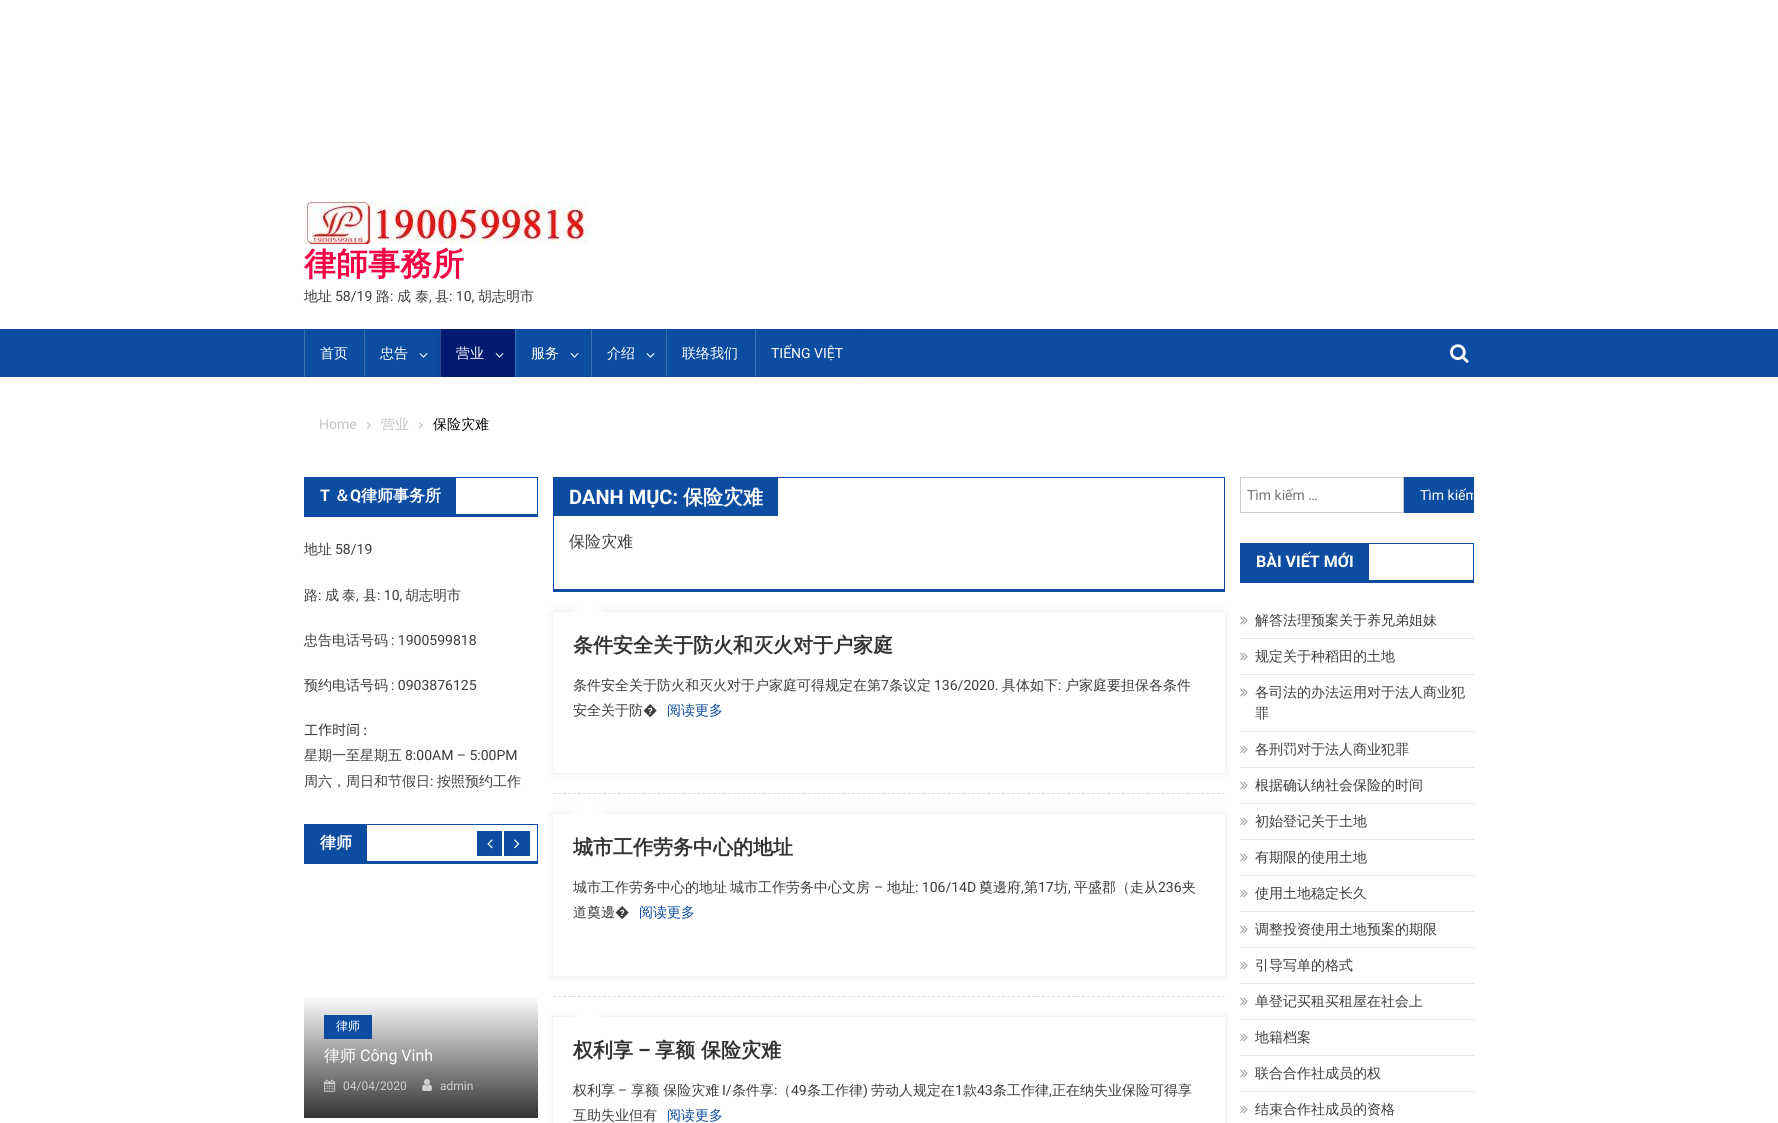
#include <cairo.h>
#include <math.h>
#include <stddef.h>

static cairo_t *ctx;

static void use_color(int r, int g, int b) {
    cairo_set_source_rgb(ctx, r / 255.0, g / 255.0, b / 255.0);
}

static void round_rect(double x, double y, double w, double h, double r) {
    cairo_new_sub_path(ctx);
    cairo_arc(ctx, x + w - r, y + h - r, r, 0, M_PI / 2);
    cairo_arc(ctx, x + r, y + h - r, r, M_PI / 2, M_PI);
    cairo_arc(ctx, x + r, y + r, r, M_PI, 1.5 * M_PI);
    cairo_arc(ctx, x + w - r, y + r, r, 1.5 * M_PI, 2 * M_PI);
    cairo_close_path(ctx);
}

static void shadow(double x, double y, double w, double h, double r, double blur, double alpha) {
    cairo_push_group_with_content(ctx, CAIRO_CONTENT_ALPHA);
    cairo_set_operator(ctx, CAIRO_OPERATOR_SOURCE);
    for (int i = 15; i >= -15 && fmin(w, h) + blur * i / 3 > 0; i -= 2) {
        double e = blur * i / 6;
        cairo_set_source_rgba(ctx, 0, 0, 0, alpha * erfc((i - 1) / 8.5) / 2);
        round_rect(x - e, y - e, w + 2 * e, h + 2 * e, fmax(0, fmin(r + e + blur * .6, fmin(w, h) / 2 + e)));
        cairo_fill(ctx);
    }
    cairo_pattern_t *soft = cairo_pop_group(ctx);
    cairo_mask(ctx, soft);
    cairo_pattern_destroy(soft);
}

static void picture(const char *path, double x, double y, double w, double h) {
    cairo_surface_t *image = cairo_image_surface_create_from_png(path);
    cairo_save(ctx);
    cairo_set_source_surface(ctx, image, x, y);
    cairo_rectangle(ctx, x, y, w, h);
    cairo_fill(ctx);
    cairo_restore(ctx);
    cairo_surface_destroy(image);
}

int main(void) {
    cairo_surface_t *surface = cairo_image_surface_create(CAIRO_FORMAT_RGB24, 1778, 1123);
    ctx = cairo_create(surface);
    cairo_font_options_t *options = cairo_font_options_create();
    cairo_font_options_set_hint_metrics(options, CAIRO_HINT_METRICS_OFF);
    cairo_font_options_set_hint_style(options, CAIRO_HINT_STYLE_NONE);
    cairo_set_font_options(ctx, options);
    cairo_set_miter_limit(ctx, 4);
    cairo_pattern_t *gradient;
    use_color(255, 255, 255);
    cairo_paint(ctx);
    picture("img1.png", 304, 201, 284, 43);
    cairo_select_font_face(ctx, "WenQuanYi Zen Hei", CAIRO_FONT_SLANT_NORMAL, CAIRO_FONT_WEIGHT_BOLD);
    cairo_set_font_size(ctx, 32);
    use_color(249, 0, 66);
    cairo_move_to(ctx, 304, 275);
    cairo_show_text(ctx, "律師事務所");
    cairo_select_font_face(ctx, "WenQuanYi Zen Hei Medium", CAIRO_FONT_SLANT_NORMAL, CAIRO_FONT_WEIGHT_NORMAL);
    cairo_set_font_size(ctx, 14);
    use_color(61, 61, 61);
    cairo_move_to(ctx, 304, 301);
    cairo_show_text(ctx, "地址");
    cairo_select_font_face(ctx, "Roboto", CAIRO_FONT_SLANT_NORMAL, CAIRO_FONT_WEIGHT_NORMAL);
    cairo_move_to(ctx, 335, 301);
    cairo_show_text(ctx, "58/19");
    cairo_select_font_face(ctx, "WenQuanYi Zen Hei Medium", CAIRO_FONT_SLANT_NORMAL, CAIRO_FONT_WEIGHT_NORMAL);
    cairo_move_to(ctx, 376, 301);
    cairo_show_text(ctx, "路");
    cairo_select_font_face(ctx, "Roboto", CAIRO_FONT_SLANT_NORMAL, CAIRO_FONT_WEIGHT_NORMAL);
    cairo_move_to(ctx, 390, 301);
    cairo_show_text(ctx, ":");
    cairo_select_font_face(ctx, "WenQuanYi Zen Hei Medium", CAIRO_FONT_SLANT_NORMAL, CAIRO_FONT_WEIGHT_NORMAL);
    cairo_move_to(ctx, 397, 301);
    cairo_show_text(ctx, "成");
    cairo_move_to(ctx, 415, 301);
    cairo_show_text(ctx, "泰");
    cairo_select_font_face(ctx, "Roboto", CAIRO_FONT_SLANT_NORMAL, CAIRO_FONT_WEIGHT_NORMAL);
    cairo_move_to(ctx, 429, 301);
    cairo_show_text(ctx, ",");
    cairo_select_font_face(ctx, "WenQuanYi Zen Hei Medium", CAIRO_FONT_SLANT_NORMAL, CAIRO_FONT_WEIGHT_NORMAL);
    cairo_move_to(ctx, 435, 301);
    cairo_show_text(ctx, "县");
    cairo_select_font_face(ctx, "Roboto", CAIRO_FONT_SLANT_NORMAL, CAIRO_FONT_WEIGHT_NORMAL);
    cairo_move_to(ctx, 449, 301);
    cairo_show_text(ctx, ": 10,");
    cairo_select_font_face(ctx, "WenQuanYi Zen Hei Medium", CAIRO_FONT_SLANT_NORMAL, CAIRO_FONT_WEIGHT_NORMAL);
    cairo_move_to(ctx, 478, 301);
    cairo_show_text(ctx, "胡志明市");
    use_color(12, 77, 162);
    cairo_rectangle(ctx, 0, 329, 1778, 48);
    cairo_fill(ctx);
    use_color(11, 71, 149);
    cairo_rectangle(ctx, 363, 329, 1, 48);
    cairo_fill(ctx);
    use_color(61, 113, 181);
    cairo_rectangle(ctx, 304, 329, 1, 48);
    cairo_fill(ctx);
    use_color(255, 255, 255);
    cairo_move_to(ctx, 320, 358);
    cairo_show_text(ctx, "首页");
    use_color(11, 71, 149);
    cairo_rectangle(ctx, 438, 329, 1, 48);
    cairo_fill(ctx);
    use_color(61, 113, 181);
    cairo_rectangle(ctx, 364, 329, 1, 48);
    cairo_fill(ctx);
    use_color(255, 255, 255);
    cairo_move_to(ctx, 380, 358);
    cairo_show_text(ctx, "忠告");
    picture("img2.png", 419, 353, 9, 5);
    use_color(0, 27, 112);
    cairo_rectangle(ctx, 441, 329, 73, 48);
    cairo_fill(ctx);
    use_color(0, 25, 103);
    cairo_rectangle(ctx, 514, 329, 1, 48);
    cairo_fill(ctx);
    use_color(51, 73, 141);
    cairo_rectangle(ctx, 440, 329, 1, 48);
    cairo_fill(ctx);
    use_color(255, 255, 255);
    cairo_move_to(ctx, 456, 358);
    cairo_show_text(ctx, "营业");
    picture("img3.png", 495, 353, 9, 5);
    use_color(11, 71, 149);
    cairo_rectangle(ctx, 589, 329, 1, 48);
    cairo_fill(ctx);
    use_color(61, 113, 181);
    cairo_rectangle(ctx, 515, 329, 1, 48);
    cairo_fill(ctx);
    use_color(255, 255, 255);
    cairo_move_to(ctx, 531, 358);
    cairo_show_text(ctx, "服务");
    picture("img2.png", 570, 353, 9, 5);
    use_color(11, 71, 149);
    cairo_rectangle(ctx, 665, 329, 1, 48);
    cairo_fill(ctx);
    use_color(61, 113, 181);
    cairo_rectangle(ctx, 591, 329, 1, 48);
    cairo_fill(ctx);
    use_color(255, 255, 255);
    cairo_move_to(ctx, 607, 358);
    cairo_show_text(ctx, "介绍");
    picture("img2.png", 646, 353, 9, 5);
    use_color(11, 71, 149);
    cairo_rectangle(ctx, 753, 329, 1, 48);
    cairo_fill(ctx);
    use_color(61, 113, 181);
    cairo_rectangle(ctx, 666, 329, 1, 48);
    cairo_fill(ctx);
    use_color(255, 255, 255);
    cairo_move_to(ctx, 682, 358);
    cairo_show_text(ctx, "联络我们");
    use_color(11, 71, 149);
    cairo_rectangle(ctx, 858, 329, 1, 48);
    cairo_fill(ctx);
    use_color(61, 113, 181);
    cairo_rectangle(ctx, 755, 329, 1, 48);
    cairo_fill(ctx);
    cairo_select_font_face(ctx, "Roboto", CAIRO_FONT_SLANT_NORMAL, CAIRO_FONT_WEIGHT_NORMAL);
    use_color(255, 255, 255);
    cairo_move_to(ctx, 771, 358);
    cairo_show_text(ctx, "TIẾNG VIỆT");
    picture("img4.png", 1450, 344, 19, 19);
    use_color(195, 195, 195);
    cairo_move_to(ctx, 319, 429);
    cairo_show_text(ctx, "Home");
    picture("img5.png", 367, 422, 4, 7);
    cairo_select_font_face(ctx, "WenQuanYi Zen Hei Medium", CAIRO_FONT_SLANT_NORMAL, CAIRO_FONT_WEIGHT_NORMAL);
    cairo_move_to(ctx, 381, 429);
    cairo_show_text(ctx, "营业");
    picture("img5.png", 419, 422, 4, 7);
    use_color(0, 0, 0);
    cairo_move_to(ctx, 433, 429);
    cairo_show_text(ctx, "保险灾难");
    use_color(12, 77, 162);
    cairo_rectangle(ctx, 304, 477, 234, 1);
    cairo_fill(ctx);
    cairo_rectangle(ctx, 537, 477, 1, 40);
    cairo_fill(ctx);
    cairo_rectangle(ctx, 304, 514, 234, 3);
    cairo_fill(ctx);
    cairo_rectangle(ctx, 304, 477, 1, 40);
    cairo_fill(ctx);
    cairo_rectangle(ctx, 305, 478, 151, 36);
    cairo_fill(ctx);
    cairo_select_font_face(ctx, "Roboto", CAIRO_FONT_SLANT_NORMAL, CAIRO_FONT_WEIGHT_BOLD);
    cairo_set_font_size(ctx, 16);
    use_color(255, 255, 255);
    cairo_move_to(ctx, 320, 501);
    cairo_show_text(ctx, "T");
    cairo_select_font_face(ctx, "WenQuanYi Zen Hei", CAIRO_FONT_SLANT_NORMAL, CAIRO_FONT_WEIGHT_BOLD);
    cairo_move_to(ctx, 334, 501);
    cairo_show_text(ctx, "＆");
    cairo_select_font_face(ctx, "Roboto", CAIRO_FONT_SLANT_NORMAL, CAIRO_FONT_WEIGHT_BOLD);
    cairo_move_to(ctx, 350, 501);
    cairo_show_text(ctx, "Q");
    cairo_select_font_face(ctx, "WenQuanYi Zen Hei", CAIRO_FONT_SLANT_NORMAL, CAIRO_FONT_WEIGHT_BOLD);
    cairo_move_to(ctx, 361, 501);
    cairo_show_text(ctx, "律师事务所");
    cairo_select_font_face(ctx, "WenQuanYi Zen Hei Medium", CAIRO_FONT_SLANT_NORMAL, CAIRO_FONT_WEIGHT_NORMAL);
    cairo_set_font_size(ctx, 14);
    use_color(61, 61, 61);
    cairo_move_to(ctx, 304, 554);
    cairo_show_text(ctx, "地址");
    cairo_select_font_face(ctx, "Roboto", CAIRO_FONT_SLANT_NORMAL, CAIRO_FONT_WEIGHT_NORMAL);
    cairo_move_to(ctx, 335, 554);
    cairo_show_text(ctx, "58/19");
    cairo_select_font_face(ctx, "WenQuanYi Zen Hei Medium", CAIRO_FONT_SLANT_NORMAL, CAIRO_FONT_WEIGHT_NORMAL);
    cairo_move_to(ctx, 304, 600);
    cairo_show_text(ctx, "路");
    cairo_select_font_face(ctx, "Roboto", CAIRO_FONT_SLANT_NORMAL, CAIRO_FONT_WEIGHT_NORMAL);
    cairo_move_to(ctx, 318, 600);
    cairo_show_text(ctx, ":");
    cairo_select_font_face(ctx, "WenQuanYi Zen Hei Medium", CAIRO_FONT_SLANT_NORMAL, CAIRO_FONT_WEIGHT_NORMAL);
    cairo_move_to(ctx, 325, 600);
    cairo_show_text(ctx, "成");
    cairo_move_to(ctx, 342, 600);
    cairo_show_text(ctx, "泰");
    cairo_select_font_face(ctx, "Roboto", CAIRO_FONT_SLANT_NORMAL, CAIRO_FONT_WEIGHT_NORMAL);
    cairo_move_to(ctx, 356, 600);
    cairo_show_text(ctx, ",");
    cairo_select_font_face(ctx, "WenQuanYi Zen Hei Medium", CAIRO_FONT_SLANT_NORMAL, CAIRO_FONT_WEIGHT_NORMAL);
    cairo_move_to(ctx, 363, 600);
    cairo_show_text(ctx, "县");
    cairo_select_font_face(ctx, "Roboto", CAIRO_FONT_SLANT_NORMAL, CAIRO_FONT_WEIGHT_NORMAL);
    cairo_move_to(ctx, 377, 600);
    cairo_show_text(ctx, ": 10,");
    cairo_select_font_face(ctx, "WenQuanYi Zen Hei Medium", CAIRO_FONT_SLANT_NORMAL, CAIRO_FONT_WEIGHT_NORMAL);
    cairo_move_to(ctx, 405, 600);
    cairo_show_text(ctx, "胡志明市");
    cairo_move_to(ctx, 304, 645);
    cairo_show_text(ctx, "忠告电话号码");
    cairo_select_font_face(ctx, "Roboto", CAIRO_FONT_SLANT_NORMAL, CAIRO_FONT_WEIGHT_NORMAL);
    cairo_move_to(ctx, 391, 645);
    cairo_show_text(ctx, ": 1900599818");
    cairo_select_font_face(ctx, "WenQuanYi Zen Hei Medium", CAIRO_FONT_SLANT_NORMAL, CAIRO_FONT_WEIGHT_NORMAL);
    cairo_move_to(ctx, 304, 690);
    cairo_show_text(ctx, "预约电话号码");
    cairo_select_font_face(ctx, "Roboto", CAIRO_FONT_SLANT_NORMAL, CAIRO_FONT_WEIGHT_NORMAL);
    cairo_move_to(ctx, 391, 690);
    cairo_show_text(ctx, ": 0903876125");
    cairo_select_font_face(ctx, "Noto Sans CJK SC", CAIRO_FONT_SLANT_NORMAL, CAIRO_FONT_WEIGHT_NORMAL);
    cairo_move_to(ctx, 304, 735);
    cairo_show_text(ctx, "工作时间 :");
    cairo_select_font_face(ctx, "WenQuanYi Zen Hei Medium", CAIRO_FONT_SLANT_NORMAL, CAIRO_FONT_WEIGHT_NORMAL);
    cairo_move_to(ctx, 304, 760);
    cairo_show_text(ctx, "星期一至星期五");
    cairo_select_font_face(ctx, "Roboto", CAIRO_FONT_SLANT_NORMAL, CAIRO_FONT_WEIGHT_NORMAL);
    cairo_move_to(ctx, 405, 760);
    cairo_show_text(ctx, "8:00AM – 5:00PM");
    cairo_select_font_face(ctx, "WenQuanYi Zen Hei Medium", CAIRO_FONT_SLANT_NORMAL, CAIRO_FONT_WEIGHT_NORMAL);
    cairo_move_to(ctx, 304, 786);
    cairo_show_text(ctx, "周六，周日和节假日");
    cairo_select_font_face(ctx, "Roboto", CAIRO_FONT_SLANT_NORMAL, CAIRO_FONT_WEIGHT_NORMAL);
    cairo_move_to(ctx, 430, 786);
    cairo_show_text(ctx, ":");
    cairo_select_font_face(ctx, "WenQuanYi Zen Hei Medium", CAIRO_FONT_SLANT_NORMAL, CAIRO_FONT_WEIGHT_NORMAL);
    cairo_move_to(ctx, 437, 786);
    cairo_show_text(ctx, "按照预约工作");
    use_color(12, 77, 162);
    cairo_rectangle(ctx, 304, 824, 234, 1);
    cairo_fill(ctx);
    cairo_rectangle(ctx, 537, 824, 1, 40);
    cairo_fill(ctx);
    cairo_rectangle(ctx, 304, 861, 234, 3);
    cairo_fill(ctx);
    cairo_rectangle(ctx, 304, 824, 1, 40);
    cairo_fill(ctx);
    cairo_rectangle(ctx, 305, 825, 62, 36);
    cairo_fill(ctx);
    cairo_select_font_face(ctx, "WenQuanYi Zen Hei", CAIRO_FONT_SLANT_NORMAL, CAIRO_FONT_WEIGHT_BOLD);
    cairo_set_font_size(ctx, 16);
    use_color(255, 255, 255);
    cairo_move_to(ctx, 320, 848);
    cairo_show_text(ctx, "律师");
    use_color(12, 77, 162);
    cairo_rectangle(ctx, 477, 831, 25, 25);
    cairo_fill(ctx);
    picture("img6.png", 487, 839, 6, 10);
    cairo_rectangle(ctx, 504, 831, 26, 25);
    cairo_fill(ctx);
    picture("img7.png", 514, 839, 6, 10);
    gradient = cairo_pattern_create_linear(421, 995, 421, 1118);
    cairo_pattern_add_color_stop_rgba(gradient, 0, 1, 1, 1, 1);
    cairo_pattern_add_color_stop_rgba(gradient, 1, 0.2, 0.2, 0.2, 1);
    cairo_set_source(ctx, gradient);
    cairo_pattern_destroy(gradient);
    cairo_rectangle(ctx, 304, 997, 234, 121);
    cairo_fill(ctx);
    use_color(12, 77, 162);
    cairo_rectangle(ctx, 324, 1015, 48, 24);
    cairo_fill(ctx);
    cairo_select_font_face(ctx, "WenQuanYi Zen Hei Medium", CAIRO_FONT_SLANT_NORMAL, CAIRO_FONT_WEIGHT_NORMAL);
    cairo_set_font_size(ctx, 12);
    use_color(255, 255, 255);
    cairo_move_to(ctx, 336, 1030);
    cairo_show_text(ctx, "律师");
    cairo_set_font_size(ctx, 16);
    cairo_move_to(ctx, 324, 1061);
    cairo_show_text(ctx, "律师");
    cairo_select_font_face(ctx, "Roboto", CAIRO_FONT_SLANT_NORMAL, CAIRO_FONT_WEIGHT_NORMAL);
    cairo_move_to(ctx, 360, 1061);
    cairo_show_text(ctx, "Công Vinh");
    picture("img8.png", 324, 1079, 12, 13);
    cairo_set_font_size(ctx, 12);
    use_color(207, 207, 207);
    cairo_move_to(ctx, 343, 1090);
    cairo_show_text(ctx, "04/04/2020");
    picture("img9.png", 422, 1079, 10, 12);
    cairo_move_to(ctx, 440, 1090);
    cairo_show_text(ctx, "admin");
    use_color(12, 77, 162);
    cairo_rectangle(ctx, 553, 477, 672, 1);
    cairo_fill(ctx);
    cairo_rectangle(ctx, 1224, 477, 1, 115);
    cairo_fill(ctx);
    cairo_rectangle(ctx, 553, 589, 672, 3);
    cairo_fill(ctx);
    cairo_rectangle(ctx, 553, 477, 1, 115);
    cairo_fill(ctx);
    cairo_rectangle(ctx, 554, 478, 224, 38);
    cairo_fill(ctx);
    cairo_select_font_face(ctx, "Roboto", CAIRO_FONT_SLANT_NORMAL, CAIRO_FONT_WEIGHT_BOLD);
    cairo_set_font_size(ctx, 20);
    use_color(255, 255, 255);
    cairo_move_to(ctx, 569, 504);
    cairo_show_text(ctx, "DANH MỤC:");
    cairo_select_font_face(ctx, "WenQuanYi Zen Hei", CAIRO_FONT_SLANT_NORMAL, CAIRO_FONT_WEIGHT_BOLD);
    cairo_move_to(ctx, 683, 504);
    cairo_show_text(ctx, "保险灾难");
    cairo_select_font_face(ctx, "WenQuanYi Zen Hei Medium", CAIRO_FONT_SLANT_NORMAL, CAIRO_FONT_WEIGHT_NORMAL);
    cairo_set_font_size(ctx, 16);
    use_color(61, 61, 61);
    cairo_move_to(ctx, 569, 547);
    cairo_show_text(ctx, "保险灾难");
    cairo_new_path(ctx);
    cairo_move_to(ctx, 553, 793.5);
    cairo_line_to(ctx, 1225, 793.5);
    use_color(221, 221, 221);
    cairo_set_line_width(ctx, 1);
    cairo_set_dash(ctx, (double[]){3, 1.99}, 2, 0);
    cairo_stroke(ctx);
    cairo_save(ctx);
    cairo_set_fill_rule(ctx, CAIRO_FILL_RULE_EVEN_ODD);
    cairo_new_path(ctx);
    cairo_move_to(ctx, 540, 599);
    cairo_line_to(ctx, 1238, 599);
    cairo_line_to(ctx, 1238, 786);
    cairo_line_to(ctx, 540, 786);
    cairo_close_path(ctx);
    cairo_move_to(ctx, 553, 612);
    cairo_line_to(ctx, 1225, 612);
    cairo_line_to(ctx, 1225, 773);
    cairo_line_to(ctx, 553, 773);
    cairo_close_path(ctx);
    cairo_clip(ctx);
    use_color(0, 0, 0);
    shadow(553, 612, 672, 161, 0, 4, 0.1);
    cairo_restore(ctx);
    use_color(255, 255, 255);
    cairo_new_path(ctx);
    cairo_move_to(ctx, 603, 612);
    cairo_line_to(ctx, 573, 612);
    cairo_line_to(ctx, 588, 597);
    cairo_close_path(ctx);
    cairo_fill(ctx);
    cairo_select_font_face(ctx, "WenQuanYi Zen Hei", CAIRO_FONT_SLANT_NORMAL, CAIRO_FONT_WEIGHT_BOLD);
    cairo_set_font_size(ctx, 20);
    use_color(51, 51, 51);
    cairo_move_to(ctx, 573, 652);
    cairo_show_text(ctx, "条件安全关于防火和灭火对于户家庭");
    cairo_select_font_face(ctx, "WenQuanYi Zen Hei Medium", CAIRO_FONT_SLANT_NORMAL, CAIRO_FONT_WEIGHT_NORMAL);
    cairo_set_font_size(ctx, 14);
    use_color(61, 61, 61);
    cairo_move_to(ctx, 573, 690);
    cairo_show_text(ctx, "条件安全关于防火和灭火对于户家庭可得规定在第");
    cairo_select_font_face(ctx, "Roboto", CAIRO_FONT_SLANT_NORMAL, CAIRO_FONT_WEIGHT_NORMAL);
    cairo_move_to(ctx, 881, 690);
    cairo_show_text(ctx, "7");
    cairo_select_font_face(ctx, "WenQuanYi Zen Hei Medium", CAIRO_FONT_SLANT_NORMAL, CAIRO_FONT_WEIGHT_NORMAL);
    cairo_move_to(ctx, 889, 690);
    cairo_show_text(ctx, "条议定");
    cairo_select_font_face(ctx, "Roboto", CAIRO_FONT_SLANT_NORMAL, CAIRO_FONT_WEIGHT_NORMAL);
    cairo_move_to(ctx, 934, 690);
    cairo_show_text(ctx, "136/2020.");
    cairo_select_font_face(ctx, "WenQuanYi Zen Hei Medium", CAIRO_FONT_SLANT_NORMAL, CAIRO_FONT_WEIGHT_NORMAL);
    cairo_move_to(ctx, 1002, 690);
    cairo_show_text(ctx, "具体如下");
    cairo_select_font_face(ctx, "Roboto", CAIRO_FONT_SLANT_NORMAL, CAIRO_FONT_WEIGHT_NORMAL);
    cairo_move_to(ctx, 1058, 690);
    cairo_show_text(ctx, ":");
    cairo_select_font_face(ctx, "WenQuanYi Zen Hei Medium", CAIRO_FONT_SLANT_NORMAL, CAIRO_FONT_WEIGHT_NORMAL);
    cairo_move_to(ctx, 1065, 690);
    cairo_show_text(ctx, "户家庭要担保各条件");
    cairo_move_to(ctx, 573, 715);
    cairo_show_text(ctx, "安全关于防");
    cairo_select_font_face(ctx, "Roboto", CAIRO_FONT_SLANT_NORMAL, CAIRO_FONT_WEIGHT_NORMAL);
    cairo_move_to(ctx, 643, 715);
    cairo_show_text(ctx, "�");
    cairo_select_font_face(ctx, "WenQuanYi Zen Hei Medium", CAIRO_FONT_SLANT_NORMAL, CAIRO_FONT_WEIGHT_NORMAL);
    use_color(12, 77, 162);
    cairo_move_to(ctx, 667, 715);
    cairo_show_text(ctx, "阅读更多");
    cairo_new_path(ctx);
    cairo_move_to(ctx, 553, 996.5);
    cairo_line_to(ctx, 1225, 996.5);
    use_color(221, 221, 221);
    cairo_stroke(ctx);
    cairo_save(ctx);
    cairo_set_fill_rule(ctx, CAIRO_FILL_RULE_EVEN_ODD);
    cairo_new_path(ctx);
    cairo_move_to(ctx, 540, 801);
    cairo_line_to(ctx, 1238, 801);
    cairo_line_to(ctx, 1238, 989);
    cairo_line_to(ctx, 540, 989);
    cairo_close_path(ctx);
    cairo_move_to(ctx, 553, 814);
    cairo_line_to(ctx, 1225, 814);
    cairo_line_to(ctx, 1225, 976);
    cairo_line_to(ctx, 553, 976);
    cairo_close_path(ctx);
    cairo_clip(ctx);
    use_color(0, 0, 0);
    shadow(553, 814, 672, 162, 0, 4, 0.1);
    cairo_restore(ctx);
    use_color(255, 255, 255);
    cairo_new_path(ctx);
    cairo_move_to(ctx, 603, 814);
    cairo_line_to(ctx, 573, 814);
    cairo_line_to(ctx, 588, 799);
    cairo_close_path(ctx);
    cairo_fill(ctx);
    cairo_select_font_face(ctx, "WenQuanYi Zen Hei", CAIRO_FONT_SLANT_NORMAL, CAIRO_FONT_WEIGHT_BOLD);
    cairo_set_font_size(ctx, 20);
    use_color(51, 51, 51);
    cairo_move_to(ctx, 573, 854);
    cairo_show_text(ctx, "城市工作劳务中心的地址");
    cairo_select_font_face(ctx, "WenQuanYi Zen Hei Medium", CAIRO_FONT_SLANT_NORMAL, CAIRO_FONT_WEIGHT_NORMAL);
    cairo_set_font_size(ctx, 14);
    use_color(61, 61, 61);
    cairo_move_to(ctx, 573, 892);
    cairo_show_text(ctx, "城市工作劳务中心的地址");
    cairo_move_to(ctx, 730, 892);
    cairo_show_text(ctx, "城市工作劳务中心文房");
    cairo_select_font_face(ctx, "Roboto", CAIRO_FONT_SLANT_NORMAL, CAIRO_FONT_WEIGHT_NORMAL);
    cairo_move_to(ctx, 874, 892);
    cairo_show_text(ctx, "–");
    cairo_select_font_face(ctx, "WenQuanYi Zen Hei Medium", CAIRO_FONT_SLANT_NORMAL, CAIRO_FONT_WEIGHT_NORMAL);
    cairo_move_to(ctx, 887, 892);
    cairo_show_text(ctx, "地址");
    cairo_select_font_face(ctx, "Roboto", CAIRO_FONT_SLANT_NORMAL, CAIRO_FONT_WEIGHT_NORMAL);
    cairo_move_to(ctx, 915, 892);
    cairo_show_text(ctx, ": 106/14D");
    cairo_select_font_face(ctx, "WenQuanYi Zen Hei Medium", CAIRO_FONT_SLANT_NORMAL, CAIRO_FONT_WEIGHT_NORMAL);
    cairo_move_to(ctx, 979, 892);
    cairo_show_text(ctx, "奠邊府");
    cairo_move_to(ctx, 1024, 892);
    cairo_show_text(ctx, "第");
    cairo_select_font_face(ctx, "Roboto", CAIRO_FONT_SLANT_NORMAL, CAIRO_FONT_WEIGHT_NORMAL);
    cairo_move_to(ctx, 1038, 892);
    cairo_show_text(ctx, "17");
    cairo_select_font_face(ctx, "WenQuanYi Zen Hei Medium", CAIRO_FONT_SLANT_NORMAL, CAIRO_FONT_WEIGHT_NORMAL);
    cairo_move_to(ctx, 1054, 892);
    cairo_show_text(ctx, "坊");
    cairo_move_to(ctx, 1074, 892);
    cairo_show_text(ctx, "平盛郡（走从");
    cairo_select_font_face(ctx, "Roboto", CAIRO_FONT_SLANT_NORMAL, CAIRO_FONT_WEIGHT_NORMAL);
    cairo_move_to(ctx, 1158, 892);
    cairo_show_text(ctx, "236");
    cairo_select_font_face(ctx, "WenQuanYi Zen Hei Medium", CAIRO_FONT_SLANT_NORMAL, CAIRO_FONT_WEIGHT_NORMAL);
    cairo_move_to(ctx, 1182, 892);
    cairo_show_text(ctx, "夹");
    cairo_select_font_face(ctx, "Roboto", CAIRO_FONT_SLANT_NORMAL, CAIRO_FONT_WEIGHT_NORMAL);
    cairo_move_to(ctx, 1021, 892);
    cairo_show_text(ctx, ",");
    cairo_move_to(ctx, 1068, 892);
    cairo_show_text(ctx, ",");
    cairo_select_font_face(ctx, "WenQuanYi Zen Hei Medium", CAIRO_FONT_SLANT_NORMAL, CAIRO_FONT_WEIGHT_NORMAL);
    cairo_move_to(ctx, 573, 917);
    cairo_show_text(ctx, "道奠邊");
    cairo_select_font_face(ctx, "Roboto", CAIRO_FONT_SLANT_NORMAL, CAIRO_FONT_WEIGHT_NORMAL);
    cairo_move_to(ctx, 615, 917);
    cairo_show_text(ctx, "�");
    cairo_select_font_face(ctx, "WenQuanYi Zen Hei Medium", CAIRO_FONT_SLANT_NORMAL, CAIRO_FONT_WEIGHT_NORMAL);
    use_color(12, 77, 162);
    cairo_move_to(ctx, 639, 917);
    cairo_show_text(ctx, "阅读更多");
    cairo_save(ctx);
    cairo_set_fill_rule(ctx, CAIRO_FILL_RULE_EVEN_ODD);
    cairo_new_path(ctx);
    cairo_move_to(ctx, 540, 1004);
    cairo_line_to(ctx, 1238, 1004);
    cairo_line_to(ctx, 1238, 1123);
    cairo_line_to(ctx, 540, 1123);
    cairo_close_path(ctx);
    cairo_move_to(ctx, 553, 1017);
    cairo_line_to(ctx, 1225, 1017);
    cairo_line_to(ctx, 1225, 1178);
    cairo_line_to(ctx, 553, 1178);
    cairo_close_path(ctx);
    cairo_clip(ctx);
    use_color(0, 0, 0);
    shadow(553, 1017, 672, 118, 0, 4, 0.1);
    cairo_restore(ctx);
    use_color(255, 255, 255);
    cairo_new_path(ctx);
    cairo_move_to(ctx, 603, 1017);
    cairo_line_to(ctx, 573, 1017);
    cairo_line_to(ctx, 588, 1002);
    cairo_close_path(ctx);
    cairo_fill(ctx);
    cairo_select_font_face(ctx, "WenQuanYi Zen Hei", CAIRO_FONT_SLANT_NORMAL, CAIRO_FONT_WEIGHT_BOLD);
    cairo_set_font_size(ctx, 20);
    use_color(51, 51, 51);
    cairo_move_to(ctx, 573, 1057);
    cairo_show_text(ctx, "权利享");
    cairo_select_font_face(ctx, "Roboto", CAIRO_FONT_SLANT_NORMAL, CAIRO_FONT_WEIGHT_BOLD);
    cairo_move_to(ctx, 638, 1057);
    cairo_show_text(ctx, "–");
    cairo_select_font_face(ctx, "WenQuanYi Zen Hei", CAIRO_FONT_SLANT_NORMAL, CAIRO_FONT_WEIGHT_BOLD);
    cairo_move_to(ctx, 655, 1057);
    cairo_show_text(ctx, "享额 保险灾难");
    cairo_select_font_face(ctx, "WenQuanYi Zen Hei Medium", CAIRO_FONT_SLANT_NORMAL, CAIRO_FONT_WEIGHT_NORMAL);
    cairo_set_font_size(ctx, 14);
    use_color(61, 61, 61);
    cairo_move_to(ctx, 573, 1095);
    cairo_show_text(ctx, "权利享");
    cairo_select_font_face(ctx, "Roboto", CAIRO_FONT_SLANT_NORMAL, CAIRO_FONT_WEIGHT_NORMAL);
    cairo_move_to(ctx, 618, 1095);
    cairo_show_text(ctx, "–");
    cairo_select_font_face(ctx, "WenQuanYi Zen Hei Medium", CAIRO_FONT_SLANT_NORMAL, CAIRO_FONT_WEIGHT_NORMAL);
    cairo_move_to(ctx, 631, 1095);
    cairo_show_text(ctx, "享额 保险灾难");
    cairo_select_font_face(ctx, "Roboto", CAIRO_FONT_SLANT_NORMAL, CAIRO_FONT_WEIGHT_NORMAL);
    cairo_move_to(ctx, 722, 1095);
    cairo_show_text(ctx, "I/");
    cairo_select_font_face(ctx, "WenQuanYi Zen Hei Medium", CAIRO_FONT_SLANT_NORMAL, CAIRO_FONT_WEIGHT_NORMAL);
    cairo_move_to(ctx, 732, 1095);
    cairo_show_text(ctx, "条件享");
    cairo_select_font_face(ctx, "Roboto", CAIRO_FONT_SLANT_NORMAL, CAIRO_FONT_WEIGHT_NORMAL);
    cairo_move_to(ctx, 774, 1095);
    cairo_show_text(ctx, ":");
    cairo_select_font_face(ctx, "WenQuanYi Zen Hei Medium", CAIRO_FONT_SLANT_NORMAL, CAIRO_FONT_WEIGHT_NORMAL);
    cairo_move_to(ctx, 777, 1095);
    cairo_show_text(ctx, "（");
    cairo_select_font_face(ctx, "Roboto", CAIRO_FONT_SLANT_NORMAL, CAIRO_FONT_WEIGHT_NORMAL);
    cairo_move_to(ctx, 791, 1095);
    cairo_show_text(ctx, "49");
    cairo_select_font_face(ctx, "WenQuanYi Zen Hei Medium", CAIRO_FONT_SLANT_NORMAL, CAIRO_FONT_WEIGHT_NORMAL);
    cairo_move_to(ctx, 807, 1095);
    cairo_show_text(ctx, "条工作律");
    cairo_select_font_face(ctx, "Roboto", CAIRO_FONT_SLANT_NORMAL, CAIRO_FONT_WEIGHT_NORMAL);
    cairo_move_to(ctx, 863, 1095);
    cairo_show_text(ctx, ")");
    cairo_select_font_face(ctx, "WenQuanYi Zen Hei Medium", CAIRO_FONT_SLANT_NORMAL, CAIRO_FONT_WEIGHT_NORMAL);
    cairo_move_to(ctx, 871, 1095);
    cairo_show_text(ctx, "劳动人规定在");
    cairo_select_font_face(ctx, "Roboto", CAIRO_FONT_SLANT_NORMAL, CAIRO_FONT_WEIGHT_NORMAL);
    cairo_move_to(ctx, 955, 1095);
    cairo_show_text(ctx, "1");
    cairo_select_font_face(ctx, "WenQuanYi Zen Hei Medium", CAIRO_FONT_SLANT_NORMAL, CAIRO_FONT_WEIGHT_NORMAL);
    cairo_move_to(ctx, 963, 1095);
    cairo_show_text(ctx, "款");
    cairo_select_font_face(ctx, "Roboto", CAIRO_FONT_SLANT_NORMAL, CAIRO_FONT_WEIGHT_NORMAL);
    cairo_move_to(ctx, 977, 1095);
    cairo_show_text(ctx, "43");
    cairo_select_font_face(ctx, "WenQuanYi Zen Hei Medium", CAIRO_FONT_SLANT_NORMAL, CAIRO_FONT_WEIGHT_NORMAL);
    cairo_move_to(ctx, 993, 1095);
    cairo_show_text(ctx, "条工作律");
    cairo_move_to(ctx, 1052, 1095);
    cairo_show_text(ctx, "正在纳失业保险可得享");
    cairo_select_font_face(ctx, "Roboto", CAIRO_FONT_SLANT_NORMAL, CAIRO_FONT_WEIGHT_NORMAL);
    cairo_move_to(ctx, 1049, 1095);
    cairo_show_text(ctx, ",");
    cairo_select_font_face(ctx, "WenQuanYi Zen Hei Medium", CAIRO_FONT_SLANT_NORMAL, CAIRO_FONT_WEIGHT_NORMAL);
    cairo_move_to(ctx, 573, 1120);
    cairo_show_text(ctx, "互助失业但有");
    use_color(12, 77, 162);
    cairo_move_to(ctx, 667, 1120);
    cairo_show_text(ctx, "阅读更多");
    cairo_rectangle(ctx, 1240.5, 477.5, 163, 35);
    use_color(204, 204, 204);
    cairo_set_dash(ctx, NULL, 0, 0);
    cairo_stroke(ctx);
    cairo_select_font_face(ctx, "Roboto", CAIRO_FONT_SLANT_NORMAL, CAIRO_FONT_WEIGHT_NORMAL);
    use_color(117, 117, 117);
    cairo_move_to(ctx, 1247, 500);
    cairo_show_text(ctx, "Tìm kiếm …");
    use_color(12, 77, 162);
    cairo_rectangle(ctx, 1404, 477, 70, 36);
    cairo_fill(ctx);
    cairo_save(ctx);
    cairo_rectangle(ctx, 1405, 478, 68, 34);
    cairo_clip(ctx);
    use_color(255, 255, 255);
    cairo_move_to(ctx, 1420, 500);
    cairo_show_text(ctx, "Tìm kiếm");
    cairo_restore(ctx);
    cairo_rectangle(ctx, 1240, 543, 234, 1);
    cairo_fill(ctx);
    cairo_rectangle(ctx, 1473, 543, 1, 40);
    cairo_fill(ctx);
    cairo_rectangle(ctx, 1240, 580, 234, 3);
    cairo_fill(ctx);
    cairo_rectangle(ctx, 1240, 543, 1, 40);
    cairo_fill(ctx);
    cairo_rectangle(ctx, 1241, 544, 128, 36);
    cairo_fill(ctx);
    cairo_select_font_face(ctx, "Roboto", CAIRO_FONT_SLANT_NORMAL, CAIRO_FONT_WEIGHT_BOLD);
    cairo_set_font_size(ctx, 16);
    use_color(255, 255, 255);
    cairo_move_to(ctx, 1256, 567);
    cairo_show_text(ctx, "BÀI VIẾT MỚI");
    use_color(230, 230, 230);
    cairo_rectangle(ctx, 1240, 638, 234, 1);
    cairo_fill(ctx);
    picture("img10.png", 1240, 616, 8, 9);
    cairo_select_font_face(ctx, "WenQuanYi Zen Hei Medium", CAIRO_FONT_SLANT_NORMAL, CAIRO_FONT_WEIGHT_NORMAL);
    cairo_set_font_size(ctx, 14);
    use_color(61, 61, 61);
    cairo_move_to(ctx, 1255, 625);
    cairo_show_text(ctx, "解答法理预案关于养兄弟姐妹");
    use_color(230, 230, 230);
    cairo_rectangle(ctx, 1240, 674, 234, 1);
    cairo_fill(ctx);
    picture("img10.png", 1240, 652, 8, 9);
    use_color(61, 61, 61);
    cairo_move_to(ctx, 1255, 661);
    cairo_show_text(ctx, "规定关于种稻田的土地");
    use_color(230, 230, 230);
    cairo_rectangle(ctx, 1240, 731, 234, 1);
    cairo_fill(ctx);
    picture("img10.png", 1240, 688, 8, 9);
    use_color(61, 61, 61);
    cairo_move_to(ctx, 1255, 697);
    cairo_show_text(ctx, "各司法的办法运用对于法人商业犯");
    cairo_move_to(ctx, 1255, 718);
    cairo_show_text(ctx, "罪");
    use_color(230, 230, 230);
    cairo_rectangle(ctx, 1240, 767, 234, 1);
    cairo_fill(ctx);
    picture("img10.png", 1240, 745, 8, 9);
    use_color(61, 61, 61);
    cairo_move_to(ctx, 1255, 754);
    cairo_show_text(ctx, "各刑罚对于法人商业犯罪");
    use_color(230, 230, 230);
    cairo_rectangle(ctx, 1240, 803, 234, 1);
    cairo_fill(ctx);
    picture("img10.png", 1240, 781, 8, 9);
    use_color(61, 61, 61);
    cairo_move_to(ctx, 1255, 790);
    cairo_show_text(ctx, "根据确认纳社会保险的时间");
    use_color(230, 230, 230);
    cairo_rectangle(ctx, 1240, 839, 234, 1);
    cairo_fill(ctx);
    picture("img10.png", 1240, 817, 8, 9);
    use_color(61, 61, 61);
    cairo_move_to(ctx, 1255, 826);
    cairo_show_text(ctx, "初始登记关于土地");
    use_color(230, 230, 230);
    cairo_rectangle(ctx, 1240, 875, 234, 1);
    cairo_fill(ctx);
    picture("img10.png", 1240, 853, 8, 9);
    use_color(61, 61, 61);
    cairo_move_to(ctx, 1255, 862);
    cairo_show_text(ctx, "有期限的使用土地");
    use_color(230, 230, 230);
    cairo_rectangle(ctx, 1240, 911, 234, 1);
    cairo_fill(ctx);
    picture("img10.png", 1240, 889, 8, 9);
    use_color(61, 61, 61);
    cairo_move_to(ctx, 1255, 898);
    cairo_show_text(ctx, "使用土地稳定长久");
    use_color(230, 230, 230);
    cairo_rectangle(ctx, 1240, 947, 234, 1);
    cairo_fill(ctx);
    picture("img10.png", 1240, 925, 8, 9);
    use_color(61, 61, 61);
    cairo_move_to(ctx, 1255, 934);
    cairo_show_text(ctx, "调整投资使用土地预案的期限");
    use_color(230, 230, 230);
    cairo_rectangle(ctx, 1240, 983, 234, 1);
    cairo_fill(ctx);
    picture("img10.png", 1240, 961, 8, 9);
    use_color(61, 61, 61);
    cairo_move_to(ctx, 1255, 970);
    cairo_show_text(ctx, "引导写单的格式");
    use_color(230, 230, 230);
    cairo_rectangle(ctx, 1240, 1019, 234, 1);
    cairo_fill(ctx);
    picture("img10.png", 1240, 997, 8, 9);
    use_color(61, 61, 61);
    cairo_move_to(ctx, 1255, 1006);
    cairo_show_text(ctx, "单登记买租买租屋在社会上");
    use_color(230, 230, 230);
    cairo_rectangle(ctx, 1240, 1055, 234, 1);
    cairo_fill(ctx);
    picture("img10.png", 1240, 1033, 8, 9);
    use_color(61, 61, 61);
    cairo_move_to(ctx, 1255, 1042);
    cairo_show_text(ctx, "地籍档案");
    use_color(230, 230, 230);
    cairo_rectangle(ctx, 1240, 1091, 234, 1);
    cairo_fill(ctx);
    picture("img10.png", 1240, 1069, 8, 9);
    use_color(61, 61, 61);
    cairo_move_to(ctx, 1255, 1078);
    cairo_show_text(ctx, "联合合作社成员的权");
    picture("img10.png", 1240, 1105, 8, 9);
    cairo_move_to(ctx, 1255, 1114);
    cairo_show_text(ctx, "结束合作社成员的资格");
    cairo_surface_write_to_png(surface, "result.png");
    cairo_font_options_destroy(options);
    cairo_destroy(ctx);
    cairo_surface_destroy(surface);
    return 0;
}
